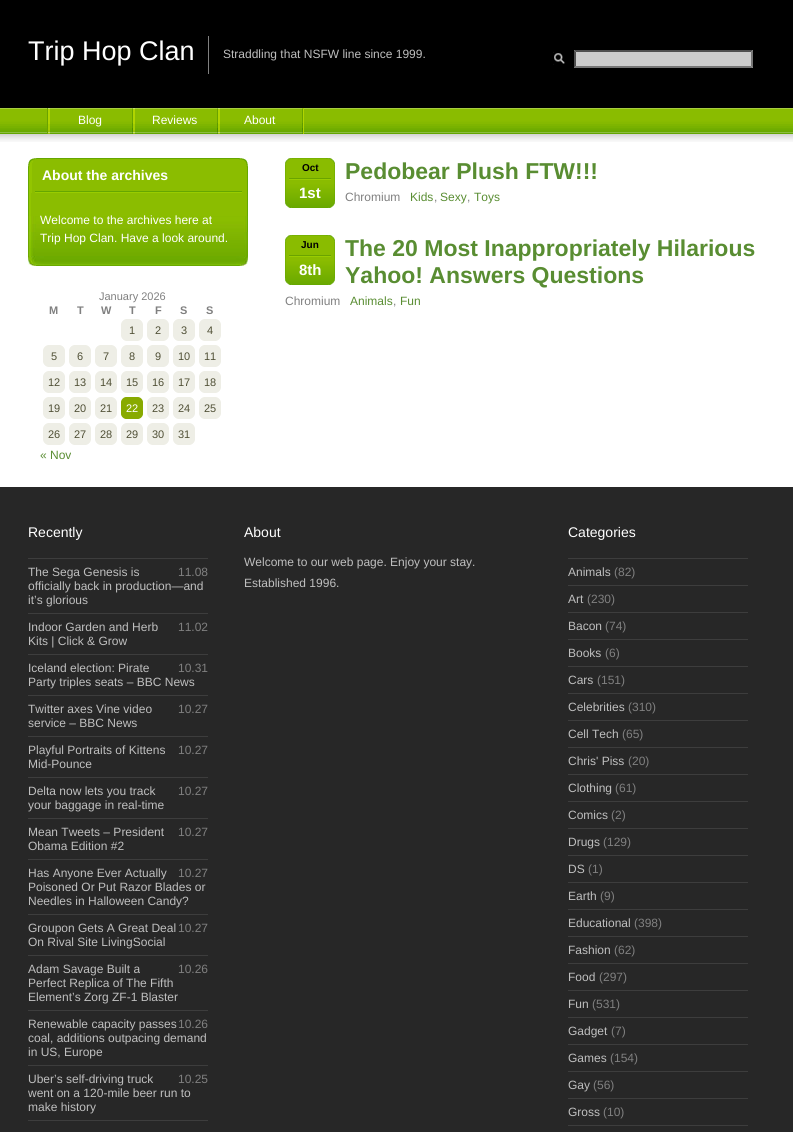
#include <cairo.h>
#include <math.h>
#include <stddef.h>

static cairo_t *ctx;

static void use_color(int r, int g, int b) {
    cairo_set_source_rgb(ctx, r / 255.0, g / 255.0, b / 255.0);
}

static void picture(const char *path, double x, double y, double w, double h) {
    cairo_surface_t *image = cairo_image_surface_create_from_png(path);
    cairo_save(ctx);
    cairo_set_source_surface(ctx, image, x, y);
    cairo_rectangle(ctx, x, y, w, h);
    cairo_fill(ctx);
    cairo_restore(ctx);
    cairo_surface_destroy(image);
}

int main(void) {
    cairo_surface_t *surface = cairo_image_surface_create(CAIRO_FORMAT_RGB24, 793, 1132);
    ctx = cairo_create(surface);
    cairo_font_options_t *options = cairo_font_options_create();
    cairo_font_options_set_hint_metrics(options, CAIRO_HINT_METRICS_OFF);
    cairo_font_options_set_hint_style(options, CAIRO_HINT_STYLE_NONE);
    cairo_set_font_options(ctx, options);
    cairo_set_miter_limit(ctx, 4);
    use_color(255, 255, 255);
    cairo_paint(ctx);
    use_color(0, 0, 0);
    cairo_rectangle(ctx, 0, 0, 793, 108);
    cairo_fill(ctx);
    use_color(128, 128, 128);
    cairo_rectangle(ctx, 208, 36, 1, 38);
    cairo_fill(ctx);
    cairo_select_font_face(ctx, "Liberation Sans", CAIRO_FONT_SLANT_NORMAL, CAIRO_FONT_WEIGHT_NORMAL);
    cairo_set_font_size(ctx, 27);
    use_color(255, 255, 255);
    cairo_move_to(ctx, 28, 60);
    cairo_show_text(ctx, "Trip Hop Clan");
    cairo_set_font_size(ctx, 12);
    use_color(191, 191, 191);
    cairo_move_to(ctx, 223, 58);
    cairo_show_text(ctx, "Straddling that NSFW line since 1999.");
    picture("img1.png", 553, 52, 12, 13);
    use_color(204, 204, 204);
    cairo_rectangle(ctx, 574, 50, 179, 18);
    cairo_fill(ctx);
    use_color(79, 79, 79);
    cairo_new_path(ctx);
    cairo_move_to(ctx, 574, 50);
    cairo_line_to(ctx, 753, 50);
    cairo_line_to(ctx, 751, 52);
    cairo_line_to(ctx, 576, 52);
    cairo_close_path(ctx);
    cairo_fill(ctx);
    use_color(118, 118, 118);
    cairo_new_path(ctx);
    cairo_move_to(ctx, 753, 50);
    cairo_line_to(ctx, 753, 68);
    cairo_line_to(ctx, 751, 66);
    cairo_line_to(ctx, 751, 52);
    cairo_close_path(ctx);
    cairo_fill(ctx);
    cairo_new_path(ctx);
    cairo_move_to(ctx, 753, 68);
    cairo_line_to(ctx, 574, 68);
    cairo_line_to(ctx, 576, 66);
    cairo_line_to(ctx, 751, 66);
    cairo_close_path(ctx);
    cairo_fill(ctx);
    use_color(79, 79, 79);
    cairo_new_path(ctx);
    cairo_move_to(ctx, 574, 68);
    cairo_line_to(ctx, 574, 50);
    cairo_line_to(ctx, 576, 52);
    cairo_line_to(ctx, 576, 66);
    cairo_close_path(ctx);
    cairo_fill(ctx);
    picture("img2.png", 0, 108, 793, 26);
    use_color(177, 213, 0);
    cairo_rectangle(ctx, 303, 108, 1, 26);
    cairo_fill(ctx);
    use_color(106, 163, 0);
    cairo_rectangle(ctx, 47, 108, 1, 26);
    cairo_fill(ctx);
    picture("img3.png", 48, 108, 2, 26);
    picture("img4.png", 132, 108, 1, 26);
    use_color(255, 255, 255);
    cairo_move_to(ctx, 78, 124);
    cairo_show_text(ctx, "Blog");
    picture("img3.png", 133, 108, 2, 26);
    picture("img4.png", 217, 108, 1, 26);
    cairo_move_to(ctx, 152, 124);
    cairo_show_text(ctx, "Reviews");
    picture("img3.png", 218, 108, 2, 26);
    picture("img4.png", 302, 108, 1, 26);
    cairo_move_to(ctx, 244, 124);
    cairo_show_text(ctx, "About");
    picture("img5.png", 0, 134, 793, 8);
    picture("img6.png", 28, 193, 220, 23);
    picture("img7.png", 28, 158, 220, 35);
    cairo_select_font_face(ctx, "Liberation Sans", CAIRO_FONT_SLANT_NORMAL, CAIRO_FONT_WEIGHT_BOLD);
    cairo_set_font_size(ctx, 14);
    cairo_move_to(ctx, 42, 180);
    cairo_show_text(ctx, "About the archives");
    picture("img8.png", 28, 216, 220, 50);
    cairo_select_font_face(ctx, "Liberation Sans", CAIRO_FONT_SLANT_NORMAL, CAIRO_FONT_WEIGHT_NORMAL);
    cairo_set_font_size(ctx, 12);
    cairo_move_to(ctx, 40, 224);
    cairo_show_text(ctx, "Welcome to the archives here at");
    cairo_move_to(ctx, 40, 242);
    cairo_show_text(ctx, "Trip Hop Clan. Have a look around.");
    picture("img9.png", 285, 158, 50, 50);
    cairo_select_font_face(ctx, "Liberation Sans", CAIRO_FONT_SLANT_NORMAL, CAIRO_FONT_WEIGHT_BOLD);
    cairo_set_font_size(ctx, 10);
    use_color(0, 0, 0);
    cairo_move_to(ctx, 302, 171);
    cairo_show_text(ctx, "Oct");
    cairo_set_font_size(ctx, 15);
    use_color(255, 255, 255);
    cairo_move_to(ctx, 299, 198);
    cairo_show_text(ctx, "1st");
    cairo_set_font_size(ctx, 23);
    use_color(89, 141, 50);
    cairo_move_to(ctx, 345, 179);
    cairo_show_text(ctx, "Pedobear Plush FTW!!!");
    cairo_select_font_face(ctx, "Liberation Sans", CAIRO_FONT_SLANT_NORMAL, CAIRO_FONT_WEIGHT_NORMAL);
    cairo_set_font_size(ctx, 12);
    use_color(128, 128, 128);
    cairo_move_to(ctx, 345, 201);
    cairo_show_text(ctx, "Chromium");
    use_color(89, 141, 50);
    cairo_move_to(ctx, 410, 201);
    cairo_show_text(ctx, "Kids");
    use_color(128, 128, 128);
    cairo_move_to(ctx, 434, 201);
    cairo_show_text(ctx, ",");
    use_color(89, 141, 50);
    cairo_move_to(ctx, 440, 201);
    cairo_show_text(ctx, "Sexy");
    use_color(128, 128, 128);
    cairo_move_to(ctx, 467, 201);
    cairo_show_text(ctx, ",");
    use_color(89, 141, 50);
    cairo_move_to(ctx, 474, 201);
    cairo_show_text(ctx, "Toys");
    picture("img9.png", 285, 235, 50, 50);
    cairo_select_font_face(ctx, "Liberation Sans", CAIRO_FONT_SLANT_NORMAL, CAIRO_FONT_WEIGHT_BOLD);
    cairo_set_font_size(ctx, 10);
    use_color(0, 0, 0);
    cairo_move_to(ctx, 301, 248);
    cairo_show_text(ctx, "Jun");
    cairo_set_font_size(ctx, 15);
    use_color(255, 255, 255);
    cairo_move_to(ctx, 299, 275);
    cairo_show_text(ctx, "8th");
    cairo_set_font_size(ctx, 23);
    use_color(89, 141, 50);
    cairo_move_to(ctx, 345, 256);
    cairo_show_text(ctx, "The 20 Most Inappropriately Hilarious");
    cairo_move_to(ctx, 345, 283);
    cairo_show_text(ctx, "Yahoo! Answers Questions");
    cairo_select_font_face(ctx, "Liberation Sans", CAIRO_FONT_SLANT_NORMAL, CAIRO_FONT_WEIGHT_NORMAL);
    cairo_set_font_size(ctx, 12);
    use_color(128, 128, 128);
    cairo_move_to(ctx, 285, 305);
    cairo_show_text(ctx, "Chromium");
    use_color(89, 141, 50);
    cairo_move_to(ctx, 350, 305);
    cairo_show_text(ctx, "Animals");
    use_color(128, 128, 128);
    cairo_move_to(ctx, 393, 305);
    cairo_show_text(ctx, ",");
    use_color(89, 141, 50);
    cairo_move_to(ctx, 400, 305);
    cairo_show_text(ctx, "Fun");
    cairo_set_font_size(ctx, 11);
    use_color(128, 128, 128);
    cairo_move_to(ctx, 99, 300);
    cairo_show_text(ctx, "January 2026");
    cairo_select_font_face(ctx, "Liberation Sans", CAIRO_FONT_SLANT_NORMAL, CAIRO_FONT_WEIGHT_BOLD);
    cairo_move_to(ctx, 49, 314);
    cairo_show_text(ctx, "M");
    cairo_move_to(ctx, 77, 314);
    cairo_show_text(ctx, "T");
    cairo_move_to(ctx, 101, 314);
    cairo_show_text(ctx, "W");
    cairo_move_to(ctx, 129, 314);
    cairo_show_text(ctx, "T");
    cairo_move_to(ctx, 155, 314);
    cairo_show_text(ctx, "F");
    cairo_move_to(ctx, 180, 314);
    cairo_show_text(ctx, "S");
    cairo_move_to(ctx, 206, 314);
    cairo_show_text(ctx, "S");
    picture("img10.png", 121, 319, 22, 22);
    cairo_select_font_face(ctx, "Liberation Sans", CAIRO_FONT_SLANT_NORMAL, CAIRO_FONT_WEIGHT_NORMAL);
    use_color(79, 79, 53);
    cairo_move_to(ctx, 129, 334);
    cairo_show_text(ctx, "1");
    picture("img10.png", 147, 319, 22, 22);
    cairo_move_to(ctx, 155, 334);
    cairo_show_text(ctx, "2");
    picture("img10.png", 173, 319, 22, 22);
    cairo_move_to(ctx, 181, 334);
    cairo_show_text(ctx, "3");
    picture("img10.png", 199, 319, 22, 22);
    cairo_move_to(ctx, 207, 334);
    cairo_show_text(ctx, "4");
    picture("img10.png", 43, 345, 22, 22);
    cairo_move_to(ctx, 51, 360);
    cairo_show_text(ctx, "5");
    picture("img10.png", 69, 345, 22, 22);
    cairo_move_to(ctx, 77, 360);
    cairo_show_text(ctx, "6");
    picture("img10.png", 95, 345, 22, 22);
    cairo_move_to(ctx, 103, 360);
    cairo_show_text(ctx, "7");
    picture("img10.png", 121, 345, 22, 22);
    cairo_move_to(ctx, 129, 360);
    cairo_show_text(ctx, "8");
    picture("img10.png", 147, 345, 22, 22);
    cairo_move_to(ctx, 155, 360);
    cairo_show_text(ctx, "9");
    picture("img10.png", 173, 345, 22, 22);
    cairo_move_to(ctx, 178, 360);
    cairo_show_text(ctx, "10");
    picture("img10.png", 199, 345, 22, 22);
    cairo_move_to(ctx, 204, 360);
    cairo_show_text(ctx, "11");
    picture("img10.png", 43, 371, 22, 22);
    cairo_move_to(ctx, 48, 386);
    cairo_show_text(ctx, "12");
    picture("img10.png", 69, 371, 22, 22);
    cairo_move_to(ctx, 74, 386);
    cairo_show_text(ctx, "13");
    picture("img10.png", 95, 371, 22, 22);
    cairo_move_to(ctx, 100, 386);
    cairo_show_text(ctx, "14");
    picture("img10.png", 121, 371, 22, 22);
    cairo_move_to(ctx, 126, 386);
    cairo_show_text(ctx, "15");
    picture("img10.png", 147, 371, 22, 22);
    cairo_move_to(ctx, 152, 386);
    cairo_show_text(ctx, "16");
    picture("img10.png", 173, 371, 22, 22);
    cairo_move_to(ctx, 178, 386);
    cairo_show_text(ctx, "17");
    picture("img10.png", 199, 371, 22, 22);
    cairo_move_to(ctx, 204, 386);
    cairo_show_text(ctx, "18");
    picture("img10.png", 43, 397, 22, 22);
    cairo_move_to(ctx, 48, 412);
    cairo_show_text(ctx, "19");
    picture("img10.png", 69, 397, 22, 22);
    cairo_move_to(ctx, 74, 412);
    cairo_show_text(ctx, "20");
    picture("img10.png", 95, 397, 22, 22);
    cairo_move_to(ctx, 100, 412);
    cairo_show_text(ctx, "21");
    picture("img11.png", 121, 397, 22, 22);
    use_color(255, 255, 255);
    cairo_move_to(ctx, 126, 412);
    cairo_show_text(ctx, "22");
    picture("img10.png", 147, 397, 22, 22);
    use_color(79, 79, 53);
    cairo_move_to(ctx, 152, 412);
    cairo_show_text(ctx, "23");
    picture("img10.png", 173, 397, 22, 22);
    cairo_move_to(ctx, 178, 412);
    cairo_show_text(ctx, "24");
    picture("img10.png", 199, 397, 22, 22);
    cairo_move_to(ctx, 204, 412);
    cairo_show_text(ctx, "25");
    picture("img10.png", 43, 423, 22, 22);
    cairo_move_to(ctx, 48, 438);
    cairo_show_text(ctx, "26");
    picture("img10.png", 69, 423, 22, 22);
    cairo_move_to(ctx, 74, 438);
    cairo_show_text(ctx, "27");
    picture("img10.png", 95, 423, 22, 22);
    cairo_move_to(ctx, 100, 438);
    cairo_show_text(ctx, "28");
    picture("img10.png", 121, 423, 22, 22);
    cairo_move_to(ctx, 126, 438);
    cairo_show_text(ctx, "29");
    picture("img10.png", 147, 423, 22, 22);
    cairo_move_to(ctx, 152, 438);
    cairo_show_text(ctx, "30");
    picture("img10.png", 173, 423, 22, 22);
    cairo_move_to(ctx, 178, 438);
    cairo_show_text(ctx, "31");
    cairo_set_font_size(ctx, 12);
    use_color(89, 141, 50);
    cairo_move_to(ctx, 40, 459);
    cairo_show_text(ctx, "« Nov");
    use_color(39, 39, 39);
    cairo_rectangle(ctx, 0, 487, 793, 645);
    cairo_fill(ctx);
    cairo_set_font_size(ctx, 14);
    use_color(255, 255, 255);
    cairo_move_to(ctx, 28, 537);
    cairo_show_text(ctx, "Recently");
    use_color(61, 61, 61);
    cairo_rectangle(ctx, 28, 558, 180, 1);
    cairo_fill(ctx);
    cairo_rectangle(ctx, 28, 613, 180, 1);
    cairo_fill(ctx);
    cairo_set_font_size(ctx, 12);
    use_color(191, 191, 191);
    cairo_move_to(ctx, 28, 576);
    cairo_show_text(ctx, "The Sega Genesis is");
    use_color(128, 128, 128);
    cairo_move_to(ctx, 178, 576);
    cairo_show_text(ctx, "11.08");
    use_color(191, 191, 191);
    cairo_move_to(ctx, 28, 590);
    cairo_show_text(ctx, "officially back in production—and");
    cairo_move_to(ctx, 28, 604);
    cairo_show_text(ctx, "it’s glorious");
    use_color(61, 61, 61);
    cairo_rectangle(ctx, 28, 654, 180, 1);
    cairo_fill(ctx);
    use_color(191, 191, 191);
    cairo_move_to(ctx, 28, 631);
    cairo_show_text(ctx, "Indoor Garden and Herb");
    use_color(128, 128, 128);
    cairo_move_to(ctx, 178, 631);
    cairo_show_text(ctx, "11.02");
    use_color(191, 191, 191);
    cairo_move_to(ctx, 28, 645);
    cairo_show_text(ctx, "Kits | Click & Grow");
    use_color(61, 61, 61);
    cairo_rectangle(ctx, 28, 695, 180, 1);
    cairo_fill(ctx);
    use_color(191, 191, 191);
    cairo_move_to(ctx, 28, 672);
    cairo_show_text(ctx, "Iceland election: Pirate");
    use_color(128, 128, 128);
    cairo_move_to(ctx, 178, 672);
    cairo_show_text(ctx, "10.31");
    use_color(191, 191, 191);
    cairo_move_to(ctx, 28, 686);
    cairo_show_text(ctx, "Party triples seats – BBC News");
    use_color(61, 61, 61);
    cairo_rectangle(ctx, 28, 736, 180, 1);
    cairo_fill(ctx);
    use_color(191, 191, 191);
    cairo_move_to(ctx, 28, 713);
    cairo_show_text(ctx, "Twitter axes Vine video");
    use_color(128, 128, 128);
    cairo_move_to(ctx, 178, 713);
    cairo_show_text(ctx, "10.27");
    use_color(191, 191, 191);
    cairo_move_to(ctx, 28, 727);
    cairo_show_text(ctx, "service – BBC News");
    use_color(61, 61, 61);
    cairo_rectangle(ctx, 28, 777, 180, 1);
    cairo_fill(ctx);
    use_color(191, 191, 191);
    cairo_move_to(ctx, 28, 754);
    cairo_show_text(ctx, "Playful Portraits of Kittens");
    use_color(128, 128, 128);
    cairo_move_to(ctx, 178, 754);
    cairo_show_text(ctx, "10.27");
    use_color(191, 191, 191);
    cairo_move_to(ctx, 28, 768);
    cairo_show_text(ctx, "Mid-Pounce");
    use_color(61, 61, 61);
    cairo_rectangle(ctx, 28, 818, 180, 1);
    cairo_fill(ctx);
    use_color(191, 191, 191);
    cairo_move_to(ctx, 28, 795);
    cairo_show_text(ctx, "Delta now lets you track");
    use_color(128, 128, 128);
    cairo_move_to(ctx, 178, 795);
    cairo_show_text(ctx, "10.27");
    use_color(191, 191, 191);
    cairo_move_to(ctx, 28, 809);
    cairo_show_text(ctx, "your baggage in real-time");
    use_color(61, 61, 61);
    cairo_rectangle(ctx, 28, 859, 180, 1);
    cairo_fill(ctx);
    use_color(191, 191, 191);
    cairo_move_to(ctx, 28, 836);
    cairo_show_text(ctx, "Mean Tweets – President");
    use_color(128, 128, 128);
    cairo_move_to(ctx, 178, 836);
    cairo_show_text(ctx, "10.27");
    use_color(191, 191, 191);
    cairo_move_to(ctx, 28, 850);
    cairo_show_text(ctx, "Obama Edition #2");
    use_color(61, 61, 61);
    cairo_rectangle(ctx, 28, 914, 180, 1);
    cairo_fill(ctx);
    use_color(191, 191, 191);
    cairo_move_to(ctx, 28, 877);
    cairo_show_text(ctx, "Has Anyone Ever Actually");
    use_color(128, 128, 128);
    cairo_move_to(ctx, 178, 877);
    cairo_show_text(ctx, "10.27");
    use_color(191, 191, 191);
    cairo_move_to(ctx, 28, 891);
    cairo_show_text(ctx, "Poisoned Or Put Razor Blades or");
    cairo_move_to(ctx, 28, 905);
    cairo_show_text(ctx, "Needles in Halloween Candy?");
    use_color(61, 61, 61);
    cairo_rectangle(ctx, 28, 955, 180, 1);
    cairo_fill(ctx);
    use_color(191, 191, 191);
    cairo_move_to(ctx, 28, 932);
    cairo_show_text(ctx, "Groupon Gets A Great Deal");
    use_color(128, 128, 128);
    cairo_move_to(ctx, 178, 932);
    cairo_show_text(ctx, "10.27");
    use_color(191, 191, 191);
    cairo_move_to(ctx, 28, 946);
    cairo_show_text(ctx, "On Rival Site LivingSocial");
    use_color(61, 61, 61);
    cairo_rectangle(ctx, 28, 1010, 180, 1);
    cairo_fill(ctx);
    use_color(191, 191, 191);
    cairo_move_to(ctx, 28, 973);
    cairo_show_text(ctx, "Adam Savage Built a");
    use_color(128, 128, 128);
    cairo_move_to(ctx, 178, 973);
    cairo_show_text(ctx, "10.26");
    use_color(191, 191, 191);
    cairo_move_to(ctx, 28, 987);
    cairo_show_text(ctx, "Perfect Replica of The Fifth");
    cairo_move_to(ctx, 28, 1001);
    cairo_show_text(ctx, "Element’s Zorg ZF-1 Blaster");
    use_color(61, 61, 61);
    cairo_rectangle(ctx, 28, 1065, 180, 1);
    cairo_fill(ctx);
    use_color(191, 191, 191);
    cairo_move_to(ctx, 28, 1028);
    cairo_show_text(ctx, "Renewable capacity passes");
    use_color(128, 128, 128);
    cairo_move_to(ctx, 178, 1028);
    cairo_show_text(ctx, "10.26");
    use_color(191, 191, 191);
    cairo_move_to(ctx, 28, 1042);
    cairo_show_text(ctx, "coal, additions outpacing demand");
    cairo_move_to(ctx, 28, 1056);
    cairo_show_text(ctx, "in US, Europe");
    use_color(61, 61, 61);
    cairo_rectangle(ctx, 28, 1120, 180, 1);
    cairo_fill(ctx);
    use_color(191, 191, 191);
    cairo_move_to(ctx, 28, 1083);
    cairo_show_text(ctx, "Uber’s self-driving truck");
    use_color(128, 128, 128);
    cairo_move_to(ctx, 178, 1083);
    cairo_show_text(ctx, "10.25");
    use_color(191, 191, 191);
    cairo_move_to(ctx, 28, 1097);
    cairo_show_text(ctx, "went on a 120-mile beer run to");
    cairo_move_to(ctx, 28, 1111);
    cairo_show_text(ctx, "make history");
    cairo_set_font_size(ctx, 14);
    use_color(255, 255, 255);
    cairo_move_to(ctx, 244, 537);
    cairo_show_text(ctx, "About");
    cairo_set_font_size(ctx, 12);
    use_color(191, 191, 191);
    cairo_move_to(ctx, 244, 566);
    cairo_show_text(ctx, "Welcome to our web page. Enjoy your stay.");
    cairo_move_to(ctx, 244, 587);
    cairo_show_text(ctx, "Established 1996.");
    cairo_set_font_size(ctx, 14);
    use_color(255, 255, 255);
    cairo_move_to(ctx, 568, 537);
    cairo_show_text(ctx, "Categories");
    use_color(61, 61, 61);
    cairo_rectangle(ctx, 568, 558, 180, 1);
    cairo_fill(ctx);
    cairo_rectangle(ctx, 568, 585, 180, 1);
    cairo_fill(ctx);
    cairo_set_font_size(ctx, 12);
    use_color(191, 191, 191);
    cairo_move_to(ctx, 568, 576);
    cairo_show_text(ctx, "Animals");
    use_color(128, 128, 128);
    cairo_move_to(ctx, 614, 576);
    cairo_show_text(ctx, "(82)");
    use_color(61, 61, 61);
    cairo_rectangle(ctx, 568, 612, 180, 1);
    cairo_fill(ctx);
    use_color(191, 191, 191);
    cairo_move_to(ctx, 568, 603);
    cairo_show_text(ctx, "Art");
    use_color(128, 128, 128);
    cairo_move_to(ctx, 587, 603);
    cairo_show_text(ctx, "(230)");
    use_color(61, 61, 61);
    cairo_rectangle(ctx, 568, 639, 180, 1);
    cairo_fill(ctx);
    use_color(191, 191, 191);
    cairo_move_to(ctx, 568, 630);
    cairo_show_text(ctx, "Bacon");
    use_color(128, 128, 128);
    cairo_move_to(ctx, 605, 630);
    cairo_show_text(ctx, "(74)");
    use_color(61, 61, 61);
    cairo_rectangle(ctx, 568, 666, 180, 1);
    cairo_fill(ctx);
    use_color(191, 191, 191);
    cairo_move_to(ctx, 568, 657);
    cairo_show_text(ctx, "Books");
    use_color(128, 128, 128);
    cairo_move_to(ctx, 605, 657);
    cairo_show_text(ctx, "(6)");
    use_color(61, 61, 61);
    cairo_rectangle(ctx, 568, 693, 180, 1);
    cairo_fill(ctx);
    use_color(191, 191, 191);
    cairo_move_to(ctx, 568, 684);
    cairo_show_text(ctx, "Cars");
    use_color(128, 128, 128);
    cairo_move_to(ctx, 597, 684);
    cairo_show_text(ctx, "(151)");
    use_color(61, 61, 61);
    cairo_rectangle(ctx, 568, 720, 180, 1);
    cairo_fill(ctx);
    use_color(191, 191, 191);
    cairo_move_to(ctx, 568, 711);
    cairo_show_text(ctx, "Celebrities");
    use_color(128, 128, 128);
    cairo_move_to(ctx, 628, 711);
    cairo_show_text(ctx, "(310)");
    use_color(61, 61, 61);
    cairo_rectangle(ctx, 568, 747, 180, 1);
    cairo_fill(ctx);
    use_color(191, 191, 191);
    cairo_move_to(ctx, 568, 738);
    cairo_show_text(ctx, "Cell Tech");
    use_color(128, 128, 128);
    cairo_move_to(ctx, 622, 738);
    cairo_show_text(ctx, "(65)");
    use_color(61, 61, 61);
    cairo_rectangle(ctx, 568, 774, 180, 1);
    cairo_fill(ctx);
    use_color(191, 191, 191);
    cairo_move_to(ctx, 568, 765);
    cairo_show_text(ctx, "Chris' Piss");
    use_color(128, 128, 128);
    cairo_move_to(ctx, 628, 765);
    cairo_show_text(ctx, "(20)");
    use_color(61, 61, 61);
    cairo_rectangle(ctx, 568, 801, 180, 1);
    cairo_fill(ctx);
    use_color(191, 191, 191);
    cairo_move_to(ctx, 568, 792);
    cairo_show_text(ctx, "Clothing");
    use_color(128, 128, 128);
    cairo_move_to(ctx, 615, 792);
    cairo_show_text(ctx, "(61)");
    use_color(61, 61, 61);
    cairo_rectangle(ctx, 568, 828, 180, 1);
    cairo_fill(ctx);
    use_color(191, 191, 191);
    cairo_move_to(ctx, 568, 819);
    cairo_show_text(ctx, "Comics");
    use_color(128, 128, 128);
    cairo_move_to(ctx, 611, 819);
    cairo_show_text(ctx, "(2)");
    use_color(61, 61, 61);
    cairo_rectangle(ctx, 568, 855, 180, 1);
    cairo_fill(ctx);
    use_color(191, 191, 191);
    cairo_move_to(ctx, 568, 846);
    cairo_show_text(ctx, "Drugs");
    use_color(128, 128, 128);
    cairo_move_to(ctx, 603, 846);
    cairo_show_text(ctx, "(129)");
    use_color(61, 61, 61);
    cairo_rectangle(ctx, 568, 882, 180, 1);
    cairo_fill(ctx);
    use_color(191, 191, 191);
    cairo_move_to(ctx, 568, 873);
    cairo_show_text(ctx, "DS");
    use_color(128, 128, 128);
    cairo_move_to(ctx, 588, 873);
    cairo_show_text(ctx, "(1)");
    use_color(61, 61, 61);
    cairo_rectangle(ctx, 568, 909, 180, 1);
    cairo_fill(ctx);
    use_color(191, 191, 191);
    cairo_move_to(ctx, 568, 900);
    cairo_show_text(ctx, "Earth");
    use_color(128, 128, 128);
    cairo_move_to(ctx, 600, 900);
    cairo_show_text(ctx, "(9)");
    use_color(61, 61, 61);
    cairo_rectangle(ctx, 568, 936, 180, 1);
    cairo_fill(ctx);
    use_color(191, 191, 191);
    cairo_move_to(ctx, 568, 927);
    cairo_show_text(ctx, "Educational");
    use_color(128, 128, 128);
    cairo_move_to(ctx, 634, 927);
    cairo_show_text(ctx, "(398)");
    use_color(61, 61, 61);
    cairo_rectangle(ctx, 568, 963, 180, 1);
    cairo_fill(ctx);
    use_color(191, 191, 191);
    cairo_move_to(ctx, 568, 954);
    cairo_show_text(ctx, "Fashion");
    use_color(128, 128, 128);
    cairo_move_to(ctx, 614, 954);
    cairo_show_text(ctx, "(62)");
    use_color(61, 61, 61);
    cairo_rectangle(ctx, 568, 990, 180, 1);
    cairo_fill(ctx);
    use_color(191, 191, 191);
    cairo_move_to(ctx, 568, 981);
    cairo_show_text(ctx, "Food");
    use_color(128, 128, 128);
    cairo_move_to(ctx, 599, 981);
    cairo_show_text(ctx, "(297)");
    use_color(61, 61, 61);
    cairo_rectangle(ctx, 568, 1017, 180, 1);
    cairo_fill(ctx);
    use_color(191, 191, 191);
    cairo_move_to(ctx, 568, 1008);
    cairo_show_text(ctx, "Fun");
    use_color(128, 128, 128);
    cairo_move_to(ctx, 592, 1008);
    cairo_show_text(ctx, "(531)");
    use_color(61, 61, 61);
    cairo_rectangle(ctx, 568, 1044, 180, 1);
    cairo_fill(ctx);
    use_color(191, 191, 191);
    cairo_move_to(ctx, 568, 1035);
    cairo_show_text(ctx, "Gadget");
    use_color(128, 128, 128);
    cairo_move_to(ctx, 611, 1035);
    cairo_show_text(ctx, "(7)");
    use_color(61, 61, 61);
    cairo_rectangle(ctx, 568, 1071, 180, 1);
    cairo_fill(ctx);
    use_color(191, 191, 191);
    cairo_move_to(ctx, 568, 1062);
    cairo_show_text(ctx, "Games");
    use_color(128, 128, 128);
    cairo_move_to(ctx, 610, 1062);
    cairo_show_text(ctx, "(154)");
    use_color(61, 61, 61);
    cairo_rectangle(ctx, 568, 1098, 180, 1);
    cairo_fill(ctx);
    use_color(191, 191, 191);
    cairo_move_to(ctx, 568, 1089);
    cairo_show_text(ctx, "Gay");
    use_color(128, 128, 128);
    cairo_move_to(ctx, 593, 1089);
    cairo_show_text(ctx, "(56)");
    use_color(61, 61, 61);
    cairo_rectangle(ctx, 568, 1125, 180, 1);
    cairo_fill(ctx);
    use_color(191, 191, 191);
    cairo_move_to(ctx, 568, 1116);
    cairo_show_text(ctx, "Gross");
    use_color(128, 128, 128);
    cairo_move_to(ctx, 603, 1116);
    cairo_show_text(ctx, "(10)");
    cairo_surface_write_to_png(surface, "result.png");
    cairo_font_options_destroy(options);
    cairo_destroy(ctx);
    cairo_surface_destroy(surface);
    return 0;
}
